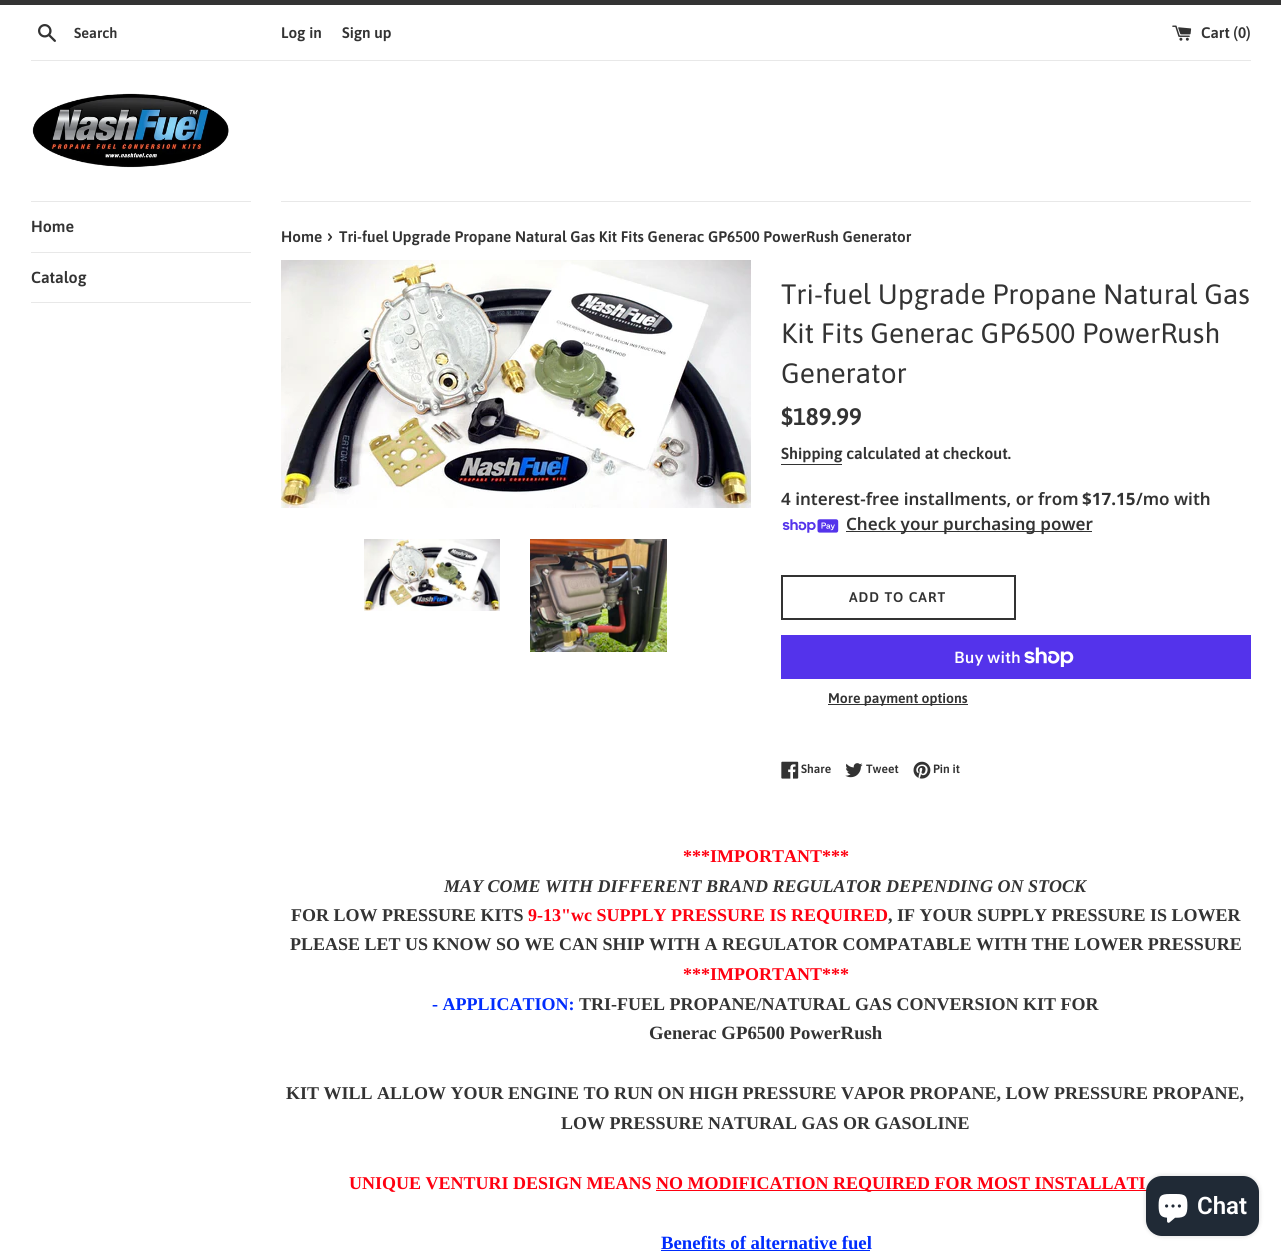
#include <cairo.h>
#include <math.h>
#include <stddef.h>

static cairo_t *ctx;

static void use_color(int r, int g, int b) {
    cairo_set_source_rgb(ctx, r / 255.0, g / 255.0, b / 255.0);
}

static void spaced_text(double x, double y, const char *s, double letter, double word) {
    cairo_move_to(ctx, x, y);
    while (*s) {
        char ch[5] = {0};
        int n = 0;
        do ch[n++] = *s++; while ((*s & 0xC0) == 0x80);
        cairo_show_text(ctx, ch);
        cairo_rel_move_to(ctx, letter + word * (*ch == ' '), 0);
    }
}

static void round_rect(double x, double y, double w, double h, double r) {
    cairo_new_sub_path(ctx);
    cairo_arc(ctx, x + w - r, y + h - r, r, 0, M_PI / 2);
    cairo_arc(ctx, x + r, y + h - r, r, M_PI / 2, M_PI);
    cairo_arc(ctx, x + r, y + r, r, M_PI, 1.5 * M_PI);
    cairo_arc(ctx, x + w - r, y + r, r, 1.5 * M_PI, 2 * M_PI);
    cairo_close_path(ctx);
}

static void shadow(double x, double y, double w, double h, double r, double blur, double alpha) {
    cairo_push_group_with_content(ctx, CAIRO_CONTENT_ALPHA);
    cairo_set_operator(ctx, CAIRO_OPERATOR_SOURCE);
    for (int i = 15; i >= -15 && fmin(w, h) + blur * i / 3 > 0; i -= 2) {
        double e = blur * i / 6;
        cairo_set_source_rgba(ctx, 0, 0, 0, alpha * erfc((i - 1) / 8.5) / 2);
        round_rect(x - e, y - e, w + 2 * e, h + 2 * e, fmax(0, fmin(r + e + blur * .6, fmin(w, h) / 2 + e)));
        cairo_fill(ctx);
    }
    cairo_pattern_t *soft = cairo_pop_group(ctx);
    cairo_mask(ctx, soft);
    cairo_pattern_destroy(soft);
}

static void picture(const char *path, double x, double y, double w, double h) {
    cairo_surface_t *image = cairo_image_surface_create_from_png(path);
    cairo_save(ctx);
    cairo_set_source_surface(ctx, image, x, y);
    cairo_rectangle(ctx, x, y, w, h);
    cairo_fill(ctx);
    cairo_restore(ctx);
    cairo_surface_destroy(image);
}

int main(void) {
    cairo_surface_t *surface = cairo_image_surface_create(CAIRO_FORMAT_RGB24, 1281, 1257);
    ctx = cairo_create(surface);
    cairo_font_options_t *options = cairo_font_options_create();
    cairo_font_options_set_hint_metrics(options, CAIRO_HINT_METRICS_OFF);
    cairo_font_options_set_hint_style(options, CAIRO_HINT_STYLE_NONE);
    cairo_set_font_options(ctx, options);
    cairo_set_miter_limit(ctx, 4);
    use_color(255, 255, 255);
    cairo_paint(ctx);
    use_color(51, 51, 51);
    cairo_rectangle(ctx, 0, 0, 1281, 5);
    cairo_fill(ctx);
    picture("img1.png", 38, 24, 18, 18);
    cairo_select_font_face(ctx, "Asap SemiBold", CAIRO_FONT_SLANT_NORMAL, CAIRO_FONT_WEIGHT_NORMAL);
    cairo_set_font_size(ctx, 14.5);
    cairo_move_to(ctx, 74, 38);
    cairo_show_text(ctx, "Search");
    cairo_set_font_size(ctx, 15.3);
    cairo_move_to(ctx, 281, 38);
    cairo_show_text(ctx, "Log in");
    cairo_move_to(ctx, 342, 38);
    cairo_show_text(ctx, "Sign up");
    picture("img2.png", 1172, 25, 20, 16);
    cairo_move_to(ctx, 1201, 38);
    cairo_show_text(ctx, "Cart (0)");
    use_color(232, 232, 232);
    cairo_rectangle(ctx, 31, 60, 1220, 1);
    cairo_fill(ctx);
    picture("img3.png", 32, 93, 197, 75);
    cairo_rectangle(ctx, 31, 201, 220, 1);
    cairo_fill(ctx);
    cairo_rectangle(ctx, 31, 252, 220, 1);
    cairo_fill(ctx);
    cairo_set_font_size(ctx, 16);
    use_color(51, 51, 51);
    cairo_move_to(ctx, 31, 232);
    cairo_show_text(ctx, "Home");
    use_color(232, 232, 232);
    cairo_rectangle(ctx, 31, 302, 220, 1);
    cairo_fill(ctx);
    use_color(51, 51, 51);
    cairo_move_to(ctx, 31, 283);
    cairo_show_text(ctx, "Catalog");
    use_color(232, 232, 232);
    cairo_rectangle(ctx, 281, 201, 970, 1);
    cairo_fill(ctx);
    cairo_set_font_size(ctx, 15.3);
    use_color(51, 51, 51);
    cairo_move_to(ctx, 281, 242);
    cairo_show_text(ctx, "Home");
    cairo_set_font_size(ctx, 19);
    cairo_move_to(ctx, 327, 242);
    cairo_show_text(ctx, "›");
    cairo_set_font_size(ctx, 15.3);
    cairo_move_to(ctx, 339, 242);
    cairo_show_text(ctx, "Tri-fuel Upgrade Propane Natural Gas Kit Fits Generac GP6500 PowerRush Generator");
    picture("img4.png", 281, 260, 470, 248);
    picture("img5.png", 364, 539, 136, 72);
    picture("img6.png", 530, 539, 137, 113);
    cairo_select_font_face(ctx, "Asap", CAIRO_FONT_SLANT_NORMAL, CAIRO_FONT_WEIGHT_NORMAL);
    cairo_set_font_size(ctx, 28);
    cairo_move_to(ctx, 781, 304);
    cairo_show_text(ctx, "Tri-fuel Upgrade Propane Natural Gas");
    cairo_move_to(ctx, 781, 343);
    cairo_show_text(ctx, "Kit Fits Generac GP6500 PowerRush");
    cairo_move_to(ctx, 781, 383);
    cairo_show_text(ctx, "Generator");
    cairo_select_font_face(ctx, "Asap SemiBold", CAIRO_FONT_SLANT_NORMAL, CAIRO_FONT_WEIGHT_NORMAL);
    cairo_set_font_size(ctx, 24);
    cairo_move_to(ctx, 781, 425);
    cairo_show_text(ctx, "$189.99");
    cairo_set_font_size(ctx, 16);
    cairo_move_to(ctx, 781, 459);
    cairo_show_text(ctx, "Shipping calculated at checkout.");
    cairo_rectangle(ctx, 781, 464, 61, 1);
    cairo_fill(ctx);
    cairo_select_font_face(ctx, "Noto Sans SemiBold", CAIRO_FONT_SLANT_NORMAL, CAIRO_FONT_WEIGHT_NORMAL);
    cairo_set_font_size(ctx, 17);
    cairo_move_to(ctx, 781, 505);
    cairo_show_text(ctx, "4 interest-free installments, or from");
    cairo_select_font_face(ctx, "Noto Sans", CAIRO_FONT_SLANT_NORMAL, CAIRO_FONT_WEIGHT_BOLD);
    cairo_move_to(ctx, 1082, 505);
    cairo_show_text(ctx, "$17.15");
    cairo_select_font_face(ctx, "Noto Sans SemiBold", CAIRO_FONT_SLANT_NORMAL, CAIRO_FONT_WEIGHT_NORMAL);
    cairo_move_to(ctx, 1136, 505);
    cairo_show_text(ctx, "/mo with");
    picture("img7.png", 782, 519, 57, 14);
    cairo_rectangle(ctx, 846, 531, 246, 1);
    cairo_fill(ctx);
    cairo_move_to(ctx, 846, 530);
    cairo_show_text(ctx, "Check your purchasing power");
    cairo_rectangle(ctx, 782, 576, 233, 43);
    cairo_stroke(ctx);
    cairo_select_font_face(ctx, "Asap SemiBold", CAIRO_FONT_SLANT_NORMAL, CAIRO_FONT_WEIGHT_NORMAL);
    cairo_set_font_size(ctx, 14);
    spaced_text(849, 602, "ADD TO CART", 1, 0);
    use_color(84, 51, 235);
    cairo_rectangle(ctx, 781, 635, 470, 44);
    cairo_fill(ctx);
    cairo_select_font_face(ctx, "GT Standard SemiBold", CAIRO_FONT_SLANT_NORMAL, CAIRO_FONT_WEIGHT_NORMAL);
    cairo_set_font_size(ctx, 16);
    use_color(255, 255, 255);
    cairo_move_to(ctx, 954, 663);
    cairo_show_text(ctx, "Buy with");
    picture("img8.png", 1024, 647, 50, 20);
    use_color(51, 51, 51);
    cairo_rectangle(ctx, 828, 704, 140, 1);
    cairo_fill(ctx);
    cairo_select_font_face(ctx, "Asap SemiBold", CAIRO_FONT_SLANT_NORMAL, CAIRO_FONT_WEIGHT_NORMAL);
    cairo_set_font_size(ctx, 14);
    cairo_move_to(ctx, 828, 703);
    cairo_show_text(ctx, "More payment options");
    picture("img9.png", 781, 761, 18, 18);
    cairo_set_font_size(ctx, 12);
    cairo_move_to(ctx, 801, 773);
    cairo_show_text(ctx, "Share");
    picture("img10.png", 845, 763, 18, 15);
    cairo_move_to(ctx, 866, 773);
    cairo_show_text(ctx, "Tweet");
    picture("img11.png", 913, 761, 18, 18);
    cairo_move_to(ctx, 933, 773);
    cairo_show_text(ctx, "Pin it");
    cairo_select_font_face(ctx, "Liberation Serif", CAIRO_FONT_SLANT_NORMAL, CAIRO_FONT_WEIGHT_BOLD);
    cairo_set_font_size(ctx, 18);
    use_color(255, 0, 16);
    cairo_move_to(ctx, 683, 862);
    cairo_show_text(ctx, "***IMPORTANT***");
    cairo_select_font_face(ctx, "Liberation Serif", CAIRO_FONT_SLANT_ITALIC, CAIRO_FONT_WEIGHT_BOLD);
    use_color(51, 51, 51);
    cairo_move_to(ctx, 444, 892);
    cairo_show_text(ctx, "MAY COME WITH DIFFERENT BRAND REGULATOR DEPENDING ON STOCK");
    cairo_select_font_face(ctx, "Liberation Serif", CAIRO_FONT_SLANT_NORMAL, CAIRO_FONT_WEIGHT_BOLD);
    cairo_move_to(ctx, 291, 921);
    cairo_show_text(ctx, "FOR LOW PRESSURE KITS");
    use_color(255, 0, 16);
    cairo_move_to(ctx, 528, 921);
    cairo_show_text(ctx, "9-13\"wc SUPPLY PRESSURE IS REQUIRED");
    use_color(51, 51, 51);
    cairo_move_to(ctx, 888, 921);
    cairo_show_text(ctx, ", IF YOUR SUPPLY PRESSURE IS LOWER");
    cairo_move_to(ctx, 290, 950);
    cairo_show_text(ctx, "PLEASE LET US KNOW SO WE CAN SHIP WITH A REGULATOR COMPATABLE WITH THE LOWER PRESSURE");
    use_color(255, 0, 16);
    cairo_move_to(ctx, 683, 980);
    cairo_show_text(ctx, "***IMPORTANT***");
    use_color(0, 44, 253);
    cairo_move_to(ctx, 432, 1010);
    cairo_show_text(ctx, "- APPLICATION:");
    use_color(51, 51, 51);
    cairo_move_to(ctx, 579, 1010);
    cairo_show_text(ctx, "TRI-FUEL PROPANE/NATURAL GAS CONVERSION KIT FOR");
    cairo_set_font_size(ctx, 18.75);
    cairo_move_to(ctx, 649, 1039);
    cairo_show_text(ctx, "Generac GP6500 PowerRush");
    cairo_set_font_size(ctx, 18);
    cairo_move_to(ctx, 286, 1099);
    cairo_show_text(ctx, "KIT WILL ALLOW YOUR ENGINE TO RUN ON HIGH PRESSURE VAPOR PROPANE, LOW PRESSURE PROPANE,");
    cairo_move_to(ctx, 561, 1129);
    cairo_show_text(ctx, "LOW PRESSURE NATURAL GAS OR GASOLINE");
    use_color(255, 0, 16);
    cairo_move_to(ctx, 349, 1189);
    cairo_show_text(ctx, "UNIQUE VENTURI DESIGN MEANS");
    cairo_rectangle(ctx, 656, 1190, 491, 1);
    cairo_fill(ctx);
    cairo_move_to(ctx, 656, 1189);
    cairo_show_text(ctx, "NO MODIFICATION REQUIRED FOR MOST INSTALLATI");
    cairo_set_font_size(ctx, 18.75);
    use_color(0, 44, 253);
    cairo_move_to(ctx, 661, 1249);
    cairo_show_text(ctx, "Benefits of alternative fuel");
    cairo_rectangle(ctx, 661, 1250, 209, 1);
    cairo_fill(ctx);
    use_color(0, 0, 0);
    shadow(1146, 1176, 113, 60, 16, 2.5, 0.15);
    use_color(32, 42, 54);
    round_rect(1146, 1176, 113, 60, 16);
    cairo_fill(ctx);
    picture("img12.png", 1158, 1194, 30, 29);
    cairo_select_font_face(ctx, "Roboto SemiBold", CAIRO_FONT_SLANT_NORMAL, CAIRO_FONT_WEIGHT_NORMAL);
    cairo_set_font_size(ctx, 24);
    use_color(255, 255, 255);
    cairo_move_to(ctx, 1197, 1214);
    cairo_show_text(ctx, "Chat");
    cairo_surface_write_to_png(surface, "result.png");
    cairo_font_options_destroy(options);
    cairo_destroy(ctx);
    cairo_surface_destroy(surface);
    return 0;
}
